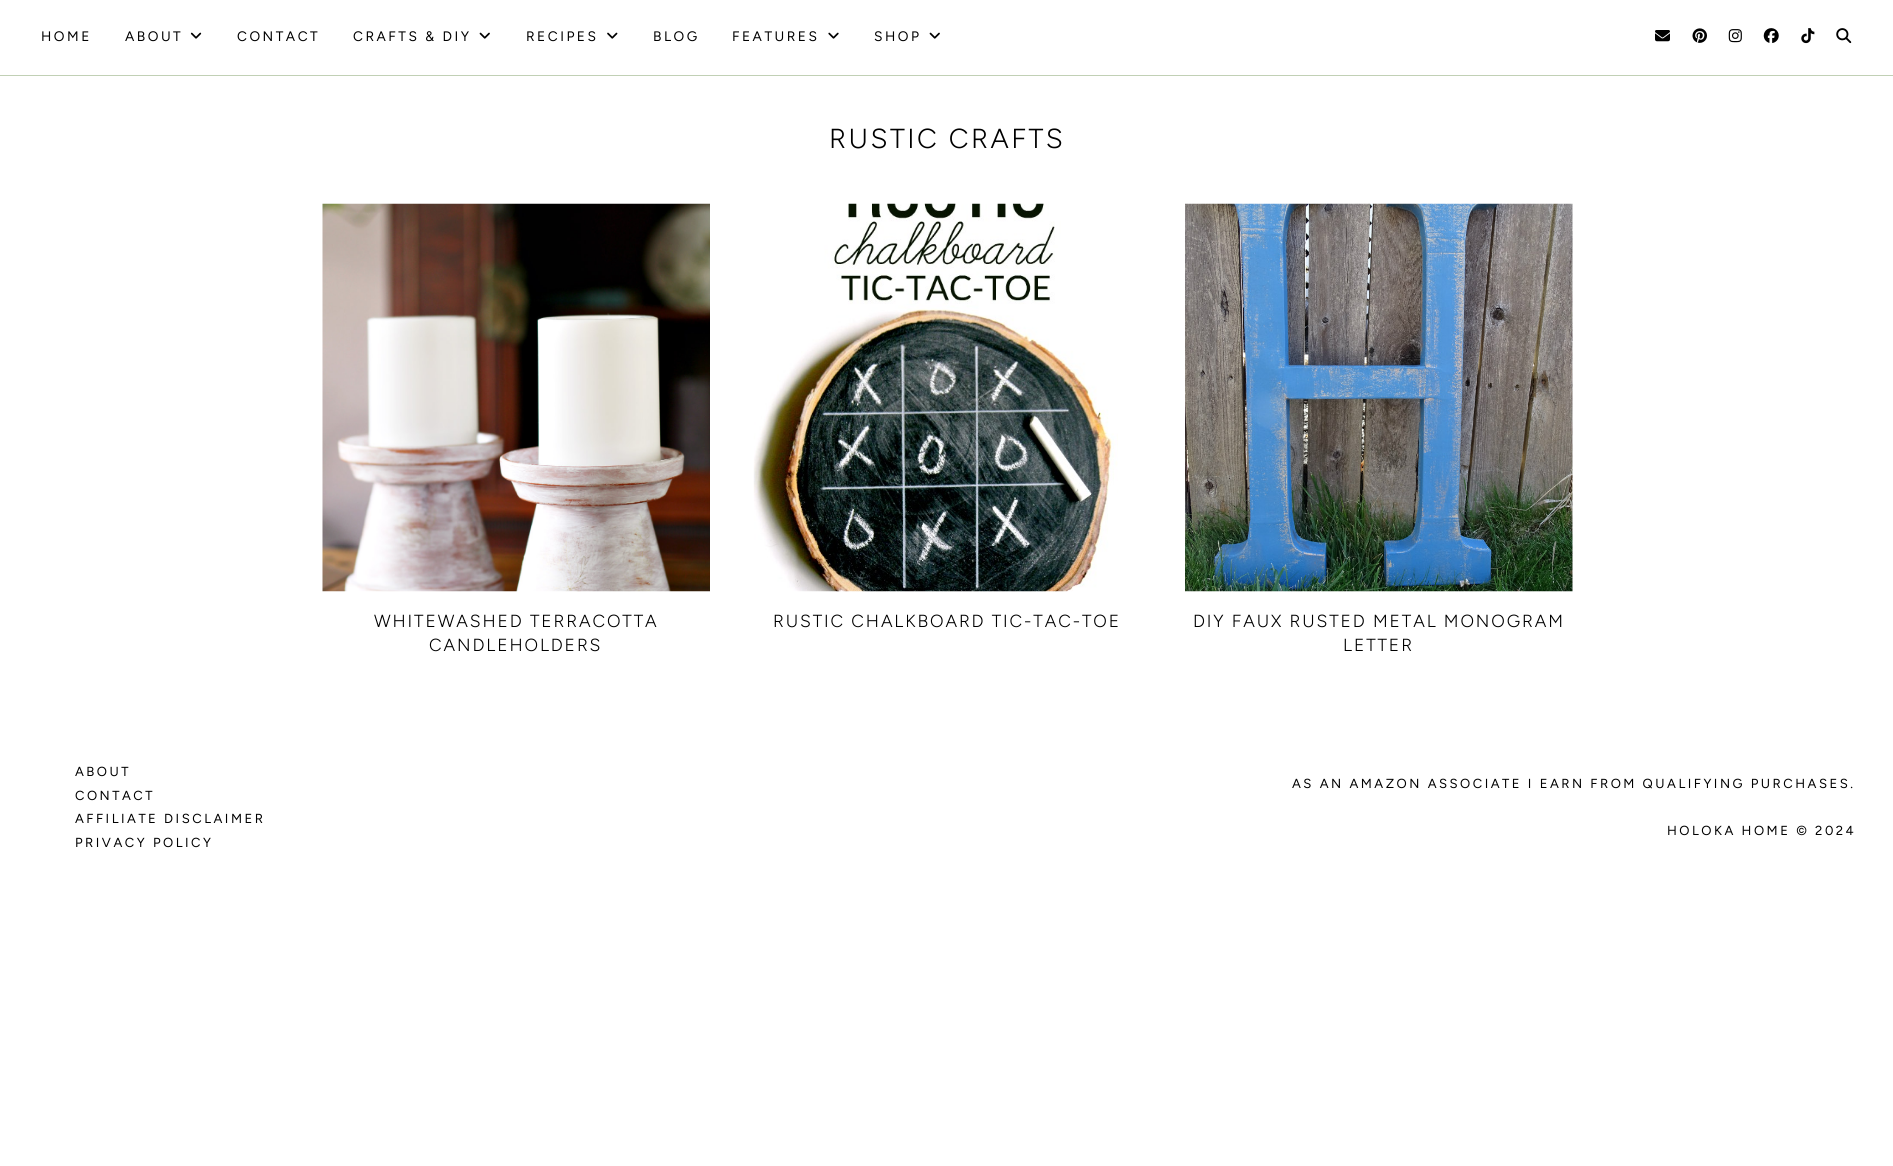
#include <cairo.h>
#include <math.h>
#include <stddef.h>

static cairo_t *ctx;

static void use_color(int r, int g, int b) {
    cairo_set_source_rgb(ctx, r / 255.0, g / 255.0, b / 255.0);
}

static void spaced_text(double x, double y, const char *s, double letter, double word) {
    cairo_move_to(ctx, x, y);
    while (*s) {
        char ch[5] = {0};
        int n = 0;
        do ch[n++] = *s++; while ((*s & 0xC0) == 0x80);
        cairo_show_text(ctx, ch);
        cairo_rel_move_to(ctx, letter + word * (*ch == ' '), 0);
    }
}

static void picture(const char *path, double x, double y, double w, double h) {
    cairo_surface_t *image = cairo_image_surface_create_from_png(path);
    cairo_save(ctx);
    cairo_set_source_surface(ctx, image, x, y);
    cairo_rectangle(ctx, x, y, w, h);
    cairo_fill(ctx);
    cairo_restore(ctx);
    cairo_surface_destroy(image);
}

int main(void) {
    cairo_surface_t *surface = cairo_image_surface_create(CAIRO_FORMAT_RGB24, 1893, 1166);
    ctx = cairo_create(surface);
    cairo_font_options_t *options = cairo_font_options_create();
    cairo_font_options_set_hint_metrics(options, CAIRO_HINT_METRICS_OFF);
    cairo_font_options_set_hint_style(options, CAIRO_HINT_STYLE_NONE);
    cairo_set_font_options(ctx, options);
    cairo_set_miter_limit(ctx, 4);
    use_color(255, 255, 255);
    cairo_paint(ctx);
    use_color(193, 208, 181);
    cairo_rectangle(ctx, 0, 75, 1893, 1);
    cairo_fill(ctx);
    cairo_select_font_face(ctx, "Figtree", CAIRO_FONT_SLANT_NORMAL, CAIRO_FONT_WEIGHT_NORMAL);
    cairo_set_font_size(ctx, 13.75);
    use_color(0, 0, 0);
    spaced_text(41, 41, "HOME", 2.5, 0);
    spaced_text(125, 41, "ABOUT", 2.5, 0);
    picture("img1.png", 190, 32, 12, 7);
    spaced_text(237, 41, "CONTACT", 2.5, 0);
    spaced_text(353, 41, "CRAFTS & DIY", 2.5, 0);
    picture("img2.png", 479, 32, 11, 7);
    spaced_text(526, 41, "RECIPES", 2.5, 0);
    picture("img3.png", 607, 32, 11, 7);
    spaced_text(653, 41, "BLOG", 2.5, 0);
    spaced_text(732, 41, "FEATURES", 2.5, 0);
    picture("img4.png", 828, 32, 11, 7);
    spaced_text(874, 41, "SHOP", 2.5, 0);
    picture("img2.png", 929, 32, 11, 7);
    picture("img5.png", 1655, 30, 15, 12);
    picture("img6.png", 1692, 28, 15, 15);
    picture("img7.png", 1728, 29, 14, 14);
    picture("img8.png", 1763, 28, 16, 15);
    picture("img9.png", 1801, 28, 14, 16);
    picture("img10.png", 1836, 28, 16, 16);
    cairo_select_font_face(ctx, "Figtree Light", CAIRO_FONT_SLANT_NORMAL, CAIRO_FONT_WEIGHT_NORMAL);
    cairo_set_font_size(ctx, 27.5);
    spaced_text(829, 148, "RUSTIC CRAFTS", 2.5, 0);
    picture("img11.png", 322, 203, 388, 389);
    cairo_set_font_size(ctx, 17.5);
    spaced_text(374, 627, "WHITEWASHED TERRACOTTA", 1.9, 0);
    spaced_text(429, 651, "CANDLEHOLDERS", 1.9, 0);
    picture("img12.png", 753, 203, 365, 389);
    spaced_text(773, 627, "RUSTIC CHALKBOARD TIC-TAC-TOE", 1.9, 0);
    picture("img13.png", 1185, 203, 388, 389);
    spaced_text(1193, 627, "DIY FAUX RUSTED METAL MONOGRAM", 1.9, 0);
    spaced_text(1343, 651, "LETTER", 1.9, 0);
    cairo_select_font_face(ctx, "Figtree", CAIRO_FONT_SLANT_NORMAL, CAIRO_FONT_WEIGHT_NORMAL);
    cairo_set_font_size(ctx, 13.1);
    spaced_text(75, 776, "ABOUT", 2.5, 0);
    spaced_text(75, 800, "CONTACT", 2.5, 0);
    spaced_text(75, 823, "AFFILIATE DISCLAIMER", 2.5, 0);
    spaced_text(75, 847, "PRIVACY POLICY", 2.5, 0);
    spaced_text(1292, 788, "AS AN AMAZON ASSOCIATE I EARN FROM QUALIFYING PURCHASES.", 2.5, 0);
    spaced_text(1667, 835, "HOLOKA HOME © 2024", 2.5, 0);
    cairo_surface_write_to_png(surface, "result.png");
    cairo_font_options_destroy(options);
    cairo_destroy(ctx);
    cairo_surface_destroy(surface);
    return 0;
}
